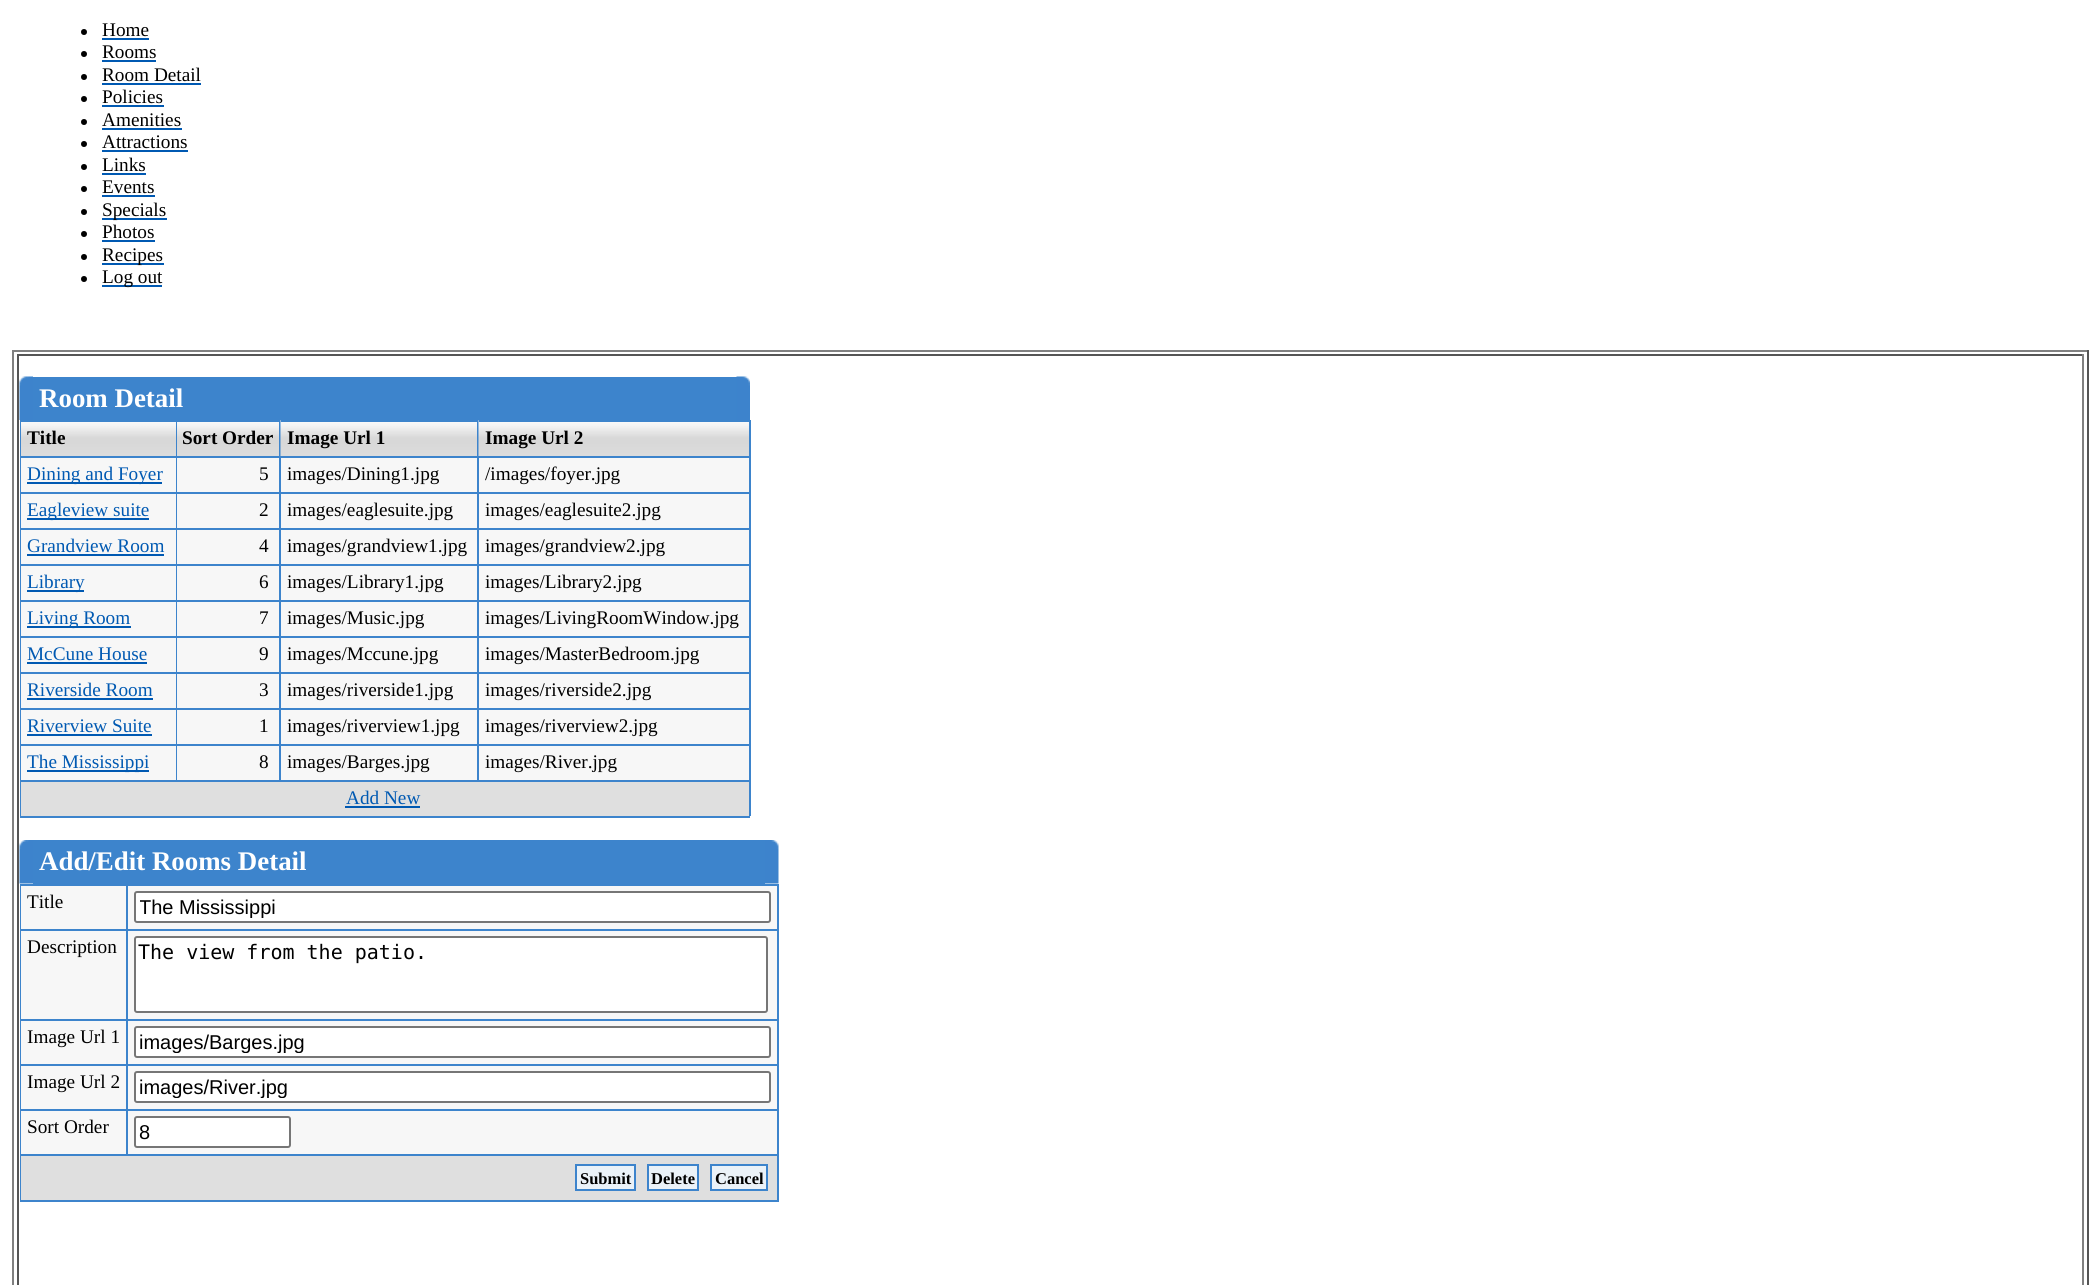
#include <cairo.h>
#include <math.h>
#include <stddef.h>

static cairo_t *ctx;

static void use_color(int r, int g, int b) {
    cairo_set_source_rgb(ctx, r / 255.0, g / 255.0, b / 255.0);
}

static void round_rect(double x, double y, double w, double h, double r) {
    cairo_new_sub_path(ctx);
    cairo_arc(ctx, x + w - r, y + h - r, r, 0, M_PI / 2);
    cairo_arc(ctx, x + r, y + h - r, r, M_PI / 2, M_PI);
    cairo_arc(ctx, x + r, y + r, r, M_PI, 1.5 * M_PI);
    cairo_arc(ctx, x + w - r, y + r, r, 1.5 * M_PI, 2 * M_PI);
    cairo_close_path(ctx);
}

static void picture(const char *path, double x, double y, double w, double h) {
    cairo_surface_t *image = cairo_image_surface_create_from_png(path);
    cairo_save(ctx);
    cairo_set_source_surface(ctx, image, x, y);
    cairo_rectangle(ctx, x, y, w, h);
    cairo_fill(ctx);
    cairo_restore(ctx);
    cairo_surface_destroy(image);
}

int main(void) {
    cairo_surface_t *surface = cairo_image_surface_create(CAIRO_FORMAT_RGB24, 2100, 1285);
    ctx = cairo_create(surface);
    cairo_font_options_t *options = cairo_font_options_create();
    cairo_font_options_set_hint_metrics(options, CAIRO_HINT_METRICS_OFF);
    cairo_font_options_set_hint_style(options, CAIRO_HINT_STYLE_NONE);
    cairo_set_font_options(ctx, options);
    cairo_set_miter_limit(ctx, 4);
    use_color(255, 255, 255);
    cairo_paint(ctx);
    use_color(0, 0, 0);
    cairo_arc(ctx, 84, 32, 3, 0, 2 * M_PI);
    cairo_fill(ctx);
    cairo_select_font_face(ctx, "Liberation Serif", CAIRO_FONT_SLANT_NORMAL, CAIRO_FONT_WEIGHT_NORMAL);
    cairo_set_font_size(ctx, 19.25);
    cairo_move_to(ctx, 102, 36);
    cairo_show_text(ctx, "Home");
    use_color(0, 89, 178);
    cairo_rectangle(ctx, 102, 38, 47, 2);
    cairo_fill(ctx);
    use_color(0, 0, 0);
    cairo_arc(ctx, 84, 54, 3, 0, 2 * M_PI);
    cairo_fill(ctx);
    cairo_move_to(ctx, 102, 58);
    cairo_show_text(ctx, "Rooms");
    use_color(0, 89, 178);
    cairo_rectangle(ctx, 102, 60, 54, 2);
    cairo_fill(ctx);
    use_color(0, 0, 0);
    cairo_arc(ctx, 84, 77, 3, 0, 2 * M_PI);
    cairo_fill(ctx);
    cairo_move_to(ctx, 102, 81);
    cairo_show_text(ctx, "Room Detail");
    use_color(0, 89, 178);
    cairo_rectangle(ctx, 102, 83, 99, 2);
    cairo_fill(ctx);
    use_color(0, 0, 0);
    cairo_arc(ctx, 84, 99, 3, 0, 2 * M_PI);
    cairo_fill(ctx);
    cairo_move_to(ctx, 102, 103);
    cairo_show_text(ctx, "Policies");
    use_color(0, 89, 178);
    cairo_rectangle(ctx, 102, 105, 62, 2);
    cairo_fill(ctx);
    use_color(0, 0, 0);
    cairo_arc(ctx, 84, 122, 3, 0, 2 * M_PI);
    cairo_fill(ctx);
    cairo_move_to(ctx, 102, 126);
    cairo_show_text(ctx, "Amenities");
    use_color(0, 89, 178);
    cairo_rectangle(ctx, 102, 128, 80, 2);
    cairo_fill(ctx);
    use_color(0, 0, 0);
    cairo_arc(ctx, 84, 144, 3, 0, 2 * M_PI);
    cairo_fill(ctx);
    cairo_move_to(ctx, 102, 148);
    cairo_show_text(ctx, "Attractions");
    use_color(0, 89, 178);
    cairo_rectangle(ctx, 102, 150, 86, 2);
    cairo_fill(ctx);
    use_color(0, 0, 0);
    cairo_arc(ctx, 84, 167, 3, 0, 2 * M_PI);
    cairo_fill(ctx);
    cairo_move_to(ctx, 102, 171);
    cairo_show_text(ctx, "Links");
    use_color(0, 89, 178);
    cairo_rectangle(ctx, 102, 173, 44, 2);
    cairo_fill(ctx);
    use_color(0, 0, 0);
    cairo_arc(ctx, 84, 189, 3, 0, 2 * M_PI);
    cairo_fill(ctx);
    cairo_move_to(ctx, 102, 193);
    cairo_show_text(ctx, "Events");
    use_color(0, 89, 178);
    cairo_rectangle(ctx, 102, 195, 53, 2);
    cairo_fill(ctx);
    use_color(0, 0, 0);
    cairo_arc(ctx, 84, 212, 3, 0, 2 * M_PI);
    cairo_fill(ctx);
    use_color(0, 89, 178);
    cairo_rectangle(ctx, 102, 218, 65, 2);
    cairo_fill(ctx);
    use_color(0, 0, 0);
    cairo_move_to(ctx, 102, 216);
    cairo_show_text(ctx, "Specials");
    cairo_new_path(ctx);
    cairo_arc(ctx, 84, 234, 3, 0, 2 * M_PI);
    cairo_fill(ctx);
    cairo_move_to(ctx, 102, 238);
    cairo_show_text(ctx, "Photos");
    use_color(0, 89, 178);
    cairo_rectangle(ctx, 102, 240, 53, 2);
    cairo_fill(ctx);
    use_color(0, 0, 0);
    cairo_arc(ctx, 84, 257, 3, 0, 2 * M_PI);
    cairo_fill(ctx);
    use_color(0, 89, 178);
    cairo_rectangle(ctx, 102, 263, 62, 2);
    cairo_fill(ctx);
    use_color(0, 0, 0);
    cairo_move_to(ctx, 102, 261);
    cairo_show_text(ctx, "Recipes");
    cairo_new_path(ctx);
    cairo_arc(ctx, 84, 279, 3, 0, 2 * M_PI);
    cairo_fill(ctx);
    use_color(0, 89, 178);
    cairo_rectangle(ctx, 102, 285, 60, 2);
    cairo_fill(ctx);
    use_color(0, 0, 0);
    cairo_move_to(ctx, 102, 283);
    cairo_show_text(ctx, "Log out");
    use_color(128, 128, 128);
    cairo_rectangle(ctx, 12, 350, 2076, 2);
    cairo_fill(ctx);
    use_color(85, 85, 85);
    cairo_rectangle(ctx, 2087, 350, 2, 935);
    cairo_fill(ctx);
    use_color(128, 128, 128);
    cairo_rectangle(ctx, 12, 350, 2, 935);
    cairo_fill(ctx);
    use_color(85, 85, 85);
    cairo_rectangle(ctx, 17, 354, 2067, 2);
    cairo_fill(ctx);
    use_color(128, 128, 128);
    cairo_rectangle(ctx, 2082, 354, 2, 931);
    cairo_fill(ctx);
    use_color(85, 85, 85);
    cairo_rectangle(ctx, 17, 354, 2, 931);
    cairo_fill(ctx);
    picture("img1.png", 19, 376, 14, 44);
    use_color(61, 132, 204);
    cairo_rectangle(ctx, 33, 377, 704, 43);
    cairo_fill(ctx);
    cairo_select_font_face(ctx, "Liberation Serif", CAIRO_FONT_SLANT_NORMAL, CAIRO_FONT_WEIGHT_BOLD);
    cairo_set_font_size(ctx, 26.9);
    use_color(255, 255, 255);
    cairo_move_to(ctx, 39, 407);
    cairo_show_text(ctx, "Room Detail");
    picture("img2.png", 736, 376, 14, 44);
    use_color(61, 132, 204);
    cairo_rectangle(ctx, 20, 816, 730, 2);
    cairo_fill(ctx);
    cairo_rectangle(ctx, 20, 420, 2, 398);
    cairo_fill(ctx);
    picture("img3.png", 21, 422, 155, 34);
    cairo_rectangle(ctx, 21, 420, 260, 2);
    cairo_fill(ctx);
    cairo_rectangle(ctx, 176, 420, 1, 36);
    cairo_fill(ctx);
    cairo_set_font_size(ctx, 19.25);
    use_color(0, 0, 0);
    cairo_move_to(ctx, 27, 444);
    cairo_show_text(ctx, "Title");
    picture("img4.png", 177, 422, 102, 34);
    use_color(61, 132, 204);
    cairo_rectangle(ctx, 279, 420, 2, 36);
    cairo_fill(ctx);
    use_color(0, 0, 0);
    cairo_move_to(ctx, 182, 444);
    cairo_show_text(ctx, "Sort Order");
    picture("img5.png", 280, 420, 197, 36);
    use_color(61, 132, 204);
    cairo_rectangle(ctx, 281, 420, 198, 2);
    cairo_fill(ctx);
    cairo_rectangle(ctx, 477, 420, 2, 36);
    cairo_fill(ctx);
    use_color(0, 0, 0);
    cairo_move_to(ctx, 287, 444);
    cairo_show_text(ctx, "Image Url 1");
    picture("img6.png", 478, 420, 271, 36);
    use_color(61, 132, 204);
    cairo_rectangle(ctx, 479, 420, 271, 2);
    cairo_fill(ctx);
    cairo_rectangle(ctx, 749, 420, 2, 36);
    cairo_fill(ctx);
    use_color(0, 0, 0);
    cairo_move_to(ctx, 485, 444);
    cairo_show_text(ctx, "Image Url 2");
    use_color(247, 247, 247);
    cairo_rectangle(ctx, 21, 458, 155, 34);
    cairo_fill(ctx);
    use_color(61, 132, 204);
    cairo_rectangle(ctx, 21, 456, 729, 2);
    cairo_fill(ctx);
    cairo_rectangle(ctx, 176, 456, 1, 36);
    cairo_fill(ctx);
    use_color(0, 89, 178);
    cairo_rectangle(ctx, 27, 482, 135, 2);
    cairo_fill(ctx);
    cairo_select_font_face(ctx, "Liberation Serif", CAIRO_FONT_SLANT_NORMAL, CAIRO_FONT_WEIGHT_NORMAL);
    cairo_move_to(ctx, 27, 480);
    cairo_show_text(ctx, "Dining and Foyer");
    use_color(247, 247, 247);
    cairo_rectangle(ctx, 177, 458, 102, 34);
    cairo_fill(ctx);
    use_color(61, 132, 204);
    cairo_rectangle(ctx, 279, 456, 2, 36);
    cairo_fill(ctx);
    use_color(0, 0, 0);
    cairo_move_to(ctx, 259, 480);
    cairo_show_text(ctx, "5");
    use_color(247, 247, 247);
    cairo_rectangle(ctx, 281, 458, 196, 34);
    cairo_fill(ctx);
    use_color(61, 132, 204);
    cairo_rectangle(ctx, 477, 456, 2, 36);
    cairo_fill(ctx);
    use_color(0, 0, 0);
    cairo_move_to(ctx, 287, 480);
    cairo_show_text(ctx, "images/Dining1.jpg");
    use_color(247, 247, 247);
    cairo_rectangle(ctx, 479, 458, 270, 34);
    cairo_fill(ctx);
    use_color(61, 132, 204);
    cairo_rectangle(ctx, 749, 456, 2, 36);
    cairo_fill(ctx);
    use_color(0, 0, 0);
    cairo_move_to(ctx, 485, 480);
    cairo_show_text(ctx, "/images/foyer.jpg");
    use_color(247, 247, 247);
    cairo_rectangle(ctx, 21, 494, 155, 34);
    cairo_fill(ctx);
    use_color(61, 132, 204);
    cairo_rectangle(ctx, 21, 492, 729, 2);
    cairo_fill(ctx);
    cairo_rectangle(ctx, 176, 492, 1, 36);
    cairo_fill(ctx);
    use_color(0, 89, 178);
    cairo_rectangle(ctx, 27, 518, 122, 2);
    cairo_fill(ctx);
    cairo_move_to(ctx, 27, 516);
    cairo_show_text(ctx, "Eagleview suite");
    use_color(247, 247, 247);
    cairo_rectangle(ctx, 177, 494, 102, 34);
    cairo_fill(ctx);
    use_color(61, 132, 204);
    cairo_rectangle(ctx, 279, 492, 2, 36);
    cairo_fill(ctx);
    use_color(0, 0, 0);
    cairo_move_to(ctx, 259, 516);
    cairo_show_text(ctx, "2");
    use_color(247, 247, 247);
    cairo_rectangle(ctx, 281, 494, 196, 34);
    cairo_fill(ctx);
    use_color(61, 132, 204);
    cairo_rectangle(ctx, 477, 492, 2, 36);
    cairo_fill(ctx);
    use_color(0, 0, 0);
    cairo_move_to(ctx, 287, 516);
    cairo_show_text(ctx, "images/eaglesuite.jpg");
    use_color(247, 247, 247);
    cairo_rectangle(ctx, 479, 494, 270, 34);
    cairo_fill(ctx);
    use_color(61, 132, 204);
    cairo_rectangle(ctx, 749, 492, 2, 36);
    cairo_fill(ctx);
    use_color(0, 0, 0);
    cairo_move_to(ctx, 485, 516);
    cairo_show_text(ctx, "images/eaglesuite2.jpg");
    use_color(247, 247, 247);
    cairo_rectangle(ctx, 21, 530, 155, 34);
    cairo_fill(ctx);
    use_color(61, 132, 204);
    cairo_rectangle(ctx, 21, 528, 729, 2);
    cairo_fill(ctx);
    cairo_rectangle(ctx, 176, 528, 1, 36);
    cairo_fill(ctx);
    use_color(0, 89, 178);
    cairo_move_to(ctx, 27, 552);
    cairo_show_text(ctx, "Grandview Room");
    cairo_rectangle(ctx, 27, 554, 137, 2);
    cairo_fill(ctx);
    use_color(247, 247, 247);
    cairo_rectangle(ctx, 177, 530, 102, 34);
    cairo_fill(ctx);
    use_color(61, 132, 204);
    cairo_rectangle(ctx, 279, 528, 2, 36);
    cairo_fill(ctx);
    use_color(0, 0, 0);
    cairo_move_to(ctx, 259, 552);
    cairo_show_text(ctx, "4");
    use_color(247, 247, 247);
    cairo_rectangle(ctx, 281, 530, 196, 34);
    cairo_fill(ctx);
    use_color(61, 132, 204);
    cairo_rectangle(ctx, 477, 528, 2, 36);
    cairo_fill(ctx);
    use_color(0, 0, 0);
    cairo_move_to(ctx, 287, 552);
    cairo_show_text(ctx, "images/grandview1.jpg");
    use_color(247, 247, 247);
    cairo_rectangle(ctx, 479, 530, 270, 34);
    cairo_fill(ctx);
    use_color(61, 132, 204);
    cairo_rectangle(ctx, 749, 528, 2, 36);
    cairo_fill(ctx);
    use_color(0, 0, 0);
    cairo_move_to(ctx, 485, 552);
    cairo_show_text(ctx, "images/grandview2.jpg");
    use_color(247, 247, 247);
    cairo_rectangle(ctx, 21, 566, 155, 34);
    cairo_fill(ctx);
    use_color(61, 132, 204);
    cairo_rectangle(ctx, 21, 564, 729, 2);
    cairo_fill(ctx);
    cairo_rectangle(ctx, 176, 564, 1, 36);
    cairo_fill(ctx);
    use_color(0, 89, 178);
    cairo_rectangle(ctx, 27, 590, 57, 2);
    cairo_fill(ctx);
    cairo_move_to(ctx, 27, 588);
    cairo_show_text(ctx, "Library");
    use_color(247, 247, 247);
    cairo_rectangle(ctx, 177, 566, 102, 34);
    cairo_fill(ctx);
    use_color(61, 132, 204);
    cairo_rectangle(ctx, 279, 564, 2, 36);
    cairo_fill(ctx);
    use_color(0, 0, 0);
    cairo_move_to(ctx, 259, 588);
    cairo_show_text(ctx, "6");
    use_color(247, 247, 247);
    cairo_rectangle(ctx, 281, 566, 196, 34);
    cairo_fill(ctx);
    use_color(61, 132, 204);
    cairo_rectangle(ctx, 477, 564, 2, 36);
    cairo_fill(ctx);
    use_color(0, 0, 0);
    cairo_move_to(ctx, 287, 588);
    cairo_show_text(ctx, "images/Library1.jpg");
    use_color(247, 247, 247);
    cairo_rectangle(ctx, 479, 566, 270, 34);
    cairo_fill(ctx);
    use_color(61, 132, 204);
    cairo_rectangle(ctx, 749, 564, 2, 36);
    cairo_fill(ctx);
    use_color(0, 0, 0);
    cairo_move_to(ctx, 485, 588);
    cairo_show_text(ctx, "images/Library2.jpg");
    use_color(247, 247, 247);
    cairo_rectangle(ctx, 21, 602, 155, 34);
    cairo_fill(ctx);
    use_color(61, 132, 204);
    cairo_rectangle(ctx, 21, 600, 729, 2);
    cairo_fill(ctx);
    cairo_rectangle(ctx, 176, 600, 1, 36);
    cairo_fill(ctx);
    use_color(0, 89, 178);
    cairo_rectangle(ctx, 27, 626, 104, 2);
    cairo_fill(ctx);
    cairo_move_to(ctx, 27, 624);
    cairo_show_text(ctx, "Living Room");
    use_color(247, 247, 247);
    cairo_rectangle(ctx, 177, 602, 102, 34);
    cairo_fill(ctx);
    use_color(61, 132, 204);
    cairo_rectangle(ctx, 279, 600, 2, 36);
    cairo_fill(ctx);
    use_color(0, 0, 0);
    cairo_move_to(ctx, 259, 624);
    cairo_show_text(ctx, "7");
    use_color(247, 247, 247);
    cairo_rectangle(ctx, 281, 602, 196, 34);
    cairo_fill(ctx);
    use_color(61, 132, 204);
    cairo_rectangle(ctx, 477, 600, 2, 36);
    cairo_fill(ctx);
    use_color(0, 0, 0);
    cairo_move_to(ctx, 287, 624);
    cairo_show_text(ctx, "images/Music.jpg");
    use_color(247, 247, 247);
    cairo_rectangle(ctx, 479, 602, 270, 34);
    cairo_fill(ctx);
    use_color(61, 132, 204);
    cairo_rectangle(ctx, 749, 600, 2, 36);
    cairo_fill(ctx);
    use_color(0, 0, 0);
    cairo_move_to(ctx, 485, 624);
    cairo_show_text(ctx, "images/LivingRoomWindow.jpg");
    use_color(247, 247, 247);
    cairo_rectangle(ctx, 21, 638, 155, 34);
    cairo_fill(ctx);
    use_color(61, 132, 204);
    cairo_rectangle(ctx, 21, 636, 729, 2);
    cairo_fill(ctx);
    cairo_rectangle(ctx, 176, 636, 1, 36);
    cairo_fill(ctx);
    use_color(0, 89, 178);
    cairo_move_to(ctx, 27, 660);
    cairo_show_text(ctx, "McCune House");
    cairo_rectangle(ctx, 27, 662, 120, 2);
    cairo_fill(ctx);
    use_color(247, 247, 247);
    cairo_rectangle(ctx, 177, 638, 102, 34);
    cairo_fill(ctx);
    use_color(61, 132, 204);
    cairo_rectangle(ctx, 279, 636, 2, 36);
    cairo_fill(ctx);
    use_color(0, 0, 0);
    cairo_move_to(ctx, 259, 660);
    cairo_show_text(ctx, "9");
    use_color(247, 247, 247);
    cairo_rectangle(ctx, 281, 638, 196, 34);
    cairo_fill(ctx);
    use_color(61, 132, 204);
    cairo_rectangle(ctx, 477, 636, 2, 36);
    cairo_fill(ctx);
    use_color(0, 0, 0);
    cairo_move_to(ctx, 287, 660);
    cairo_show_text(ctx, "images/Mccune.jpg");
    use_color(247, 247, 247);
    cairo_rectangle(ctx, 479, 638, 270, 34);
    cairo_fill(ctx);
    use_color(61, 132, 204);
    cairo_rectangle(ctx, 749, 636, 2, 36);
    cairo_fill(ctx);
    use_color(0, 0, 0);
    cairo_move_to(ctx, 485, 660);
    cairo_show_text(ctx, "images/MasterBedroom.jpg");
    use_color(247, 247, 247);
    cairo_rectangle(ctx, 21, 674, 155, 34);
    cairo_fill(ctx);
    use_color(61, 132, 204);
    cairo_rectangle(ctx, 21, 672, 729, 2);
    cairo_fill(ctx);
    cairo_rectangle(ctx, 176, 672, 1, 36);
    cairo_fill(ctx);
    use_color(0, 89, 178);
    cairo_move_to(ctx, 27, 696);
    cairo_show_text(ctx, "Riverside Room");
    cairo_rectangle(ctx, 27, 698, 126, 2);
    cairo_fill(ctx);
    use_color(247, 247, 247);
    cairo_rectangle(ctx, 177, 674, 102, 34);
    cairo_fill(ctx);
    use_color(61, 132, 204);
    cairo_rectangle(ctx, 279, 672, 2, 36);
    cairo_fill(ctx);
    use_color(0, 0, 0);
    cairo_move_to(ctx, 259, 696);
    cairo_show_text(ctx, "3");
    use_color(247, 247, 247);
    cairo_rectangle(ctx, 281, 674, 196, 34);
    cairo_fill(ctx);
    use_color(61, 132, 204);
    cairo_rectangle(ctx, 477, 672, 2, 36);
    cairo_fill(ctx);
    use_color(0, 0, 0);
    cairo_move_to(ctx, 287, 696);
    cairo_show_text(ctx, "images/riverside1.jpg");
    use_color(247, 247, 247);
    cairo_rectangle(ctx, 479, 674, 270, 34);
    cairo_fill(ctx);
    use_color(61, 132, 204);
    cairo_rectangle(ctx, 749, 672, 2, 36);
    cairo_fill(ctx);
    use_color(0, 0, 0);
    cairo_move_to(ctx, 485, 696);
    cairo_show_text(ctx, "images/riverside2.jpg");
    use_color(247, 247, 247);
    cairo_rectangle(ctx, 21, 710, 155, 34);
    cairo_fill(ctx);
    use_color(61, 132, 204);
    cairo_rectangle(ctx, 21, 708, 729, 2);
    cairo_fill(ctx);
    cairo_rectangle(ctx, 176, 708, 1, 36);
    cairo_fill(ctx);
    use_color(0, 89, 178);
    cairo_move_to(ctx, 27, 732);
    cairo_show_text(ctx, "Riverview Suite");
    cairo_rectangle(ctx, 27, 734, 125, 2);
    cairo_fill(ctx);
    use_color(247, 247, 247);
    cairo_rectangle(ctx, 177, 710, 102, 34);
    cairo_fill(ctx);
    use_color(61, 132, 204);
    cairo_rectangle(ctx, 279, 708, 2, 36);
    cairo_fill(ctx);
    use_color(0, 0, 0);
    cairo_move_to(ctx, 259, 732);
    cairo_show_text(ctx, "1");
    use_color(247, 247, 247);
    cairo_rectangle(ctx, 281, 710, 196, 34);
    cairo_fill(ctx);
    use_color(61, 132, 204);
    cairo_rectangle(ctx, 477, 708, 2, 36);
    cairo_fill(ctx);
    use_color(0, 0, 0);
    cairo_move_to(ctx, 287, 732);
    cairo_show_text(ctx, "images/riverview1.jpg");
    use_color(247, 247, 247);
    cairo_rectangle(ctx, 479, 710, 270, 34);
    cairo_fill(ctx);
    use_color(61, 132, 204);
    cairo_rectangle(ctx, 749, 708, 2, 36);
    cairo_fill(ctx);
    use_color(0, 0, 0);
    cairo_move_to(ctx, 485, 732);
    cairo_show_text(ctx, "images/riverview2.jpg");
    use_color(247, 247, 247);
    cairo_rectangle(ctx, 21, 746, 155, 34);
    cairo_fill(ctx);
    use_color(61, 132, 204);
    cairo_rectangle(ctx, 21, 744, 729, 2);
    cairo_fill(ctx);
    cairo_rectangle(ctx, 176, 744, 1, 36);
    cairo_fill(ctx);
    use_color(0, 89, 178);
    cairo_rectangle(ctx, 27, 770, 122, 2);
    cairo_fill(ctx);
    cairo_move_to(ctx, 27, 768);
    cairo_show_text(ctx, "The Mississippi");
    use_color(247, 247, 247);
    cairo_rectangle(ctx, 177, 746, 102, 34);
    cairo_fill(ctx);
    use_color(61, 132, 204);
    cairo_rectangle(ctx, 279, 744, 2, 36);
    cairo_fill(ctx);
    use_color(0, 0, 0);
    cairo_move_to(ctx, 259, 768);
    cairo_show_text(ctx, "8");
    use_color(247, 247, 247);
    cairo_rectangle(ctx, 281, 746, 196, 34);
    cairo_fill(ctx);
    use_color(61, 132, 204);
    cairo_rectangle(ctx, 477, 744, 2, 36);
    cairo_fill(ctx);
    use_color(0, 0, 0);
    cairo_move_to(ctx, 287, 768);
    cairo_show_text(ctx, "images/Barges.jpg");
    use_color(247, 247, 247);
    cairo_rectangle(ctx, 479, 746, 270, 34);
    cairo_fill(ctx);
    use_color(61, 132, 204);
    cairo_rectangle(ctx, 749, 744, 2, 36);
    cairo_fill(ctx);
    use_color(0, 0, 0);
    cairo_move_to(ctx, 485, 768);
    cairo_show_text(ctx, "images/River.jpg");
    use_color(223, 223, 223);
    cairo_rectangle(ctx, 21, 782, 728, 34);
    cairo_fill(ctx);
    use_color(61, 132, 204);
    cairo_rectangle(ctx, 21, 780, 729, 2);
    cairo_fill(ctx);
    cairo_rectangle(ctx, 749, 780, 2, 36);
    cairo_fill(ctx);
    use_color(0, 89, 178);
    cairo_move_to(ctx, 346, 804);
    cairo_show_text(ctx, "Add New");
    cairo_rectangle(ctx, 345, 806, 75, 2);
    cairo_fill(ctx);
    picture("img7.png", 19, 840, 14, 44);
    use_color(61, 132, 204);
    cairo_rectangle(ctx, 33, 840, 732, 44);
    cairo_fill(ctx);
    cairo_select_font_face(ctx, "Liberation Serif", CAIRO_FONT_SLANT_NORMAL, CAIRO_FONT_WEIGHT_BOLD);
    cairo_set_font_size(ctx, 26.9);
    use_color(255, 255, 255);
    cairo_move_to(ctx, 39, 870);
    cairo_show_text(ctx, "Add/Edit Rooms Detail");
    picture("img8.png", 765, 840, 14, 44);
    use_color(61, 132, 204);
    cairo_rectangle(ctx, 20, 1200, 759, 2);
    cairo_fill(ctx);
    cairo_rectangle(ctx, 20, 884, 2, 318);
    cairo_fill(ctx);
    use_color(247, 247, 247);
    cairo_rectangle(ctx, 21, 886, 105, 43);
    cairo_fill(ctx);
    use_color(61, 132, 204);
    cairo_rectangle(ctx, 21, 884, 758, 2);
    cairo_fill(ctx);
    cairo_rectangle(ctx, 126, 884, 2, 45);
    cairo_fill(ctx);
    cairo_select_font_face(ctx, "Liberation Serif", CAIRO_FONT_SLANT_NORMAL, CAIRO_FONT_WEIGHT_NORMAL);
    cairo_set_font_size(ctx, 19.25);
    use_color(0, 0, 0);
    cairo_move_to(ctx, 27, 908);
    cairo_show_text(ctx, "Title");
    use_color(247, 247, 247);
    cairo_rectangle(ctx, 128, 886, 649, 43);
    cairo_fill(ctx);
    use_color(61, 132, 204);
    cairo_rectangle(ctx, 777, 884, 2, 45);
    cairo_fill(ctx);
    use_color(255, 255, 255);
    round_rect(135, 892, 635, 30, 2);
    cairo_fill_preserve(ctx);
    use_color(118, 118, 118);
    cairo_stroke(ctx);
    cairo_save(ctx);
    cairo_rectangle(ctx, 140, 896, 625, 22);
    cairo_clip(ctx);
    cairo_select_font_face(ctx, "Liberation Sans", CAIRO_FONT_SLANT_NORMAL, CAIRO_FONT_WEIGHT_NORMAL);
    cairo_set_font_size(ctx, 20);
    use_color(0, 0, 0);
    cairo_move_to(ctx, 139, 914);
    cairo_show_text(ctx, "The Mississippi");
    cairo_restore(ctx);
    use_color(247, 247, 247);
    cairo_rectangle(ctx, 21, 931, 105, 88);
    cairo_fill(ctx);
    use_color(61, 132, 204);
    cairo_rectangle(ctx, 21, 929, 758, 2);
    cairo_fill(ctx);
    cairo_rectangle(ctx, 126, 929, 2, 90);
    cairo_fill(ctx);
    use_color(0, 0, 0);
    cairo_move_to(ctx, 27, 953);
    cairo_show_text(ctx, "Description");
    use_color(247, 247, 247);
    cairo_rectangle(ctx, 128, 931, 649, 88);
    cairo_fill(ctx);
    use_color(61, 132, 204);
    cairo_rectangle(ctx, 777, 929, 2, 90);
    cairo_fill(ctx);
    use_color(255, 255, 255);
    round_rect(135, 937, 632, 75, 2);
    cairo_fill_preserve(ctx);
    use_color(118, 118, 118);
    cairo_stroke(ctx);
    cairo_select_font_face(ctx, "DejaVu Sans Mono", CAIRO_FONT_SLANT_NORMAL, CAIRO_FONT_WEIGHT_NORMAL);
    cairo_set_font_size(ctx, 20);
    use_color(0, 0, 0);
    cairo_move_to(ctx, 138, 959);
    cairo_show_text(ctx, "The view from the patio.");
    use_color(247, 247, 247);
    cairo_rectangle(ctx, 21, 1021, 105, 43);
    cairo_fill(ctx);
    use_color(61, 132, 204);
    cairo_rectangle(ctx, 21, 1019, 758, 2);
    cairo_fill(ctx);
    cairo_rectangle(ctx, 126, 1019, 2, 45);
    cairo_fill(ctx);
    cairo_select_font_face(ctx, "Liberation Serif", CAIRO_FONT_SLANT_NORMAL, CAIRO_FONT_WEIGHT_NORMAL);
    cairo_set_font_size(ctx, 19.25);
    use_color(0, 0, 0);
    cairo_move_to(ctx, 27, 1043);
    cairo_show_text(ctx, "Image Url 1");
    use_color(247, 247, 247);
    cairo_rectangle(ctx, 128, 1021, 649, 43);
    cairo_fill(ctx);
    use_color(61, 132, 204);
    cairo_rectangle(ctx, 777, 1019, 2, 45);
    cairo_fill(ctx);
    use_color(255, 255, 255);
    round_rect(135, 1027, 635, 30, 2);
    cairo_fill_preserve(ctx);
    use_color(118, 118, 118);
    cairo_stroke(ctx);
    cairo_save(ctx);
    cairo_rectangle(ctx, 140, 1031, 625, 22);
    cairo_clip(ctx);
    cairo_select_font_face(ctx, "Liberation Sans", CAIRO_FONT_SLANT_NORMAL, CAIRO_FONT_WEIGHT_NORMAL);
    cairo_set_font_size(ctx, 20);
    use_color(0, 0, 0);
    cairo_move_to(ctx, 139, 1049);
    cairo_show_text(ctx, "images/Barges.jpg");
    cairo_restore(ctx);
    use_color(247, 247, 247);
    cairo_rectangle(ctx, 21, 1066, 105, 43);
    cairo_fill(ctx);
    use_color(61, 132, 204);
    cairo_rectangle(ctx, 21, 1064, 758, 2);
    cairo_fill(ctx);
    cairo_rectangle(ctx, 126, 1064, 2, 45);
    cairo_fill(ctx);
    use_color(0, 0, 0);
    cairo_move_to(ctx, 27, 1088);
    cairo_show_text(ctx, "Image Url 2");
    use_color(247, 247, 247);
    cairo_rectangle(ctx, 128, 1066, 649, 43);
    cairo_fill(ctx);
    use_color(61, 132, 204);
    cairo_rectangle(ctx, 777, 1064, 2, 45);
    cairo_fill(ctx);
    use_color(255, 255, 255);
    round_rect(135, 1072, 635, 30, 2);
    cairo_fill_preserve(ctx);
    use_color(118, 118, 118);
    cairo_stroke(ctx);
    cairo_save(ctx);
    cairo_rectangle(ctx, 140, 1076, 625, 22);
    cairo_clip(ctx);
    cairo_select_font_face(ctx, "Liberation Sans", CAIRO_FONT_SLANT_NORMAL, CAIRO_FONT_WEIGHT_NORMAL);
    cairo_set_font_size(ctx, 20);
    use_color(0, 0, 0);
    cairo_move_to(ctx, 139, 1094);
    cairo_show_text(ctx, "images/River.jpg");
    cairo_restore(ctx);
    use_color(247, 247, 247);
    cairo_rectangle(ctx, 21, 1111, 105, 43);
    cairo_fill(ctx);
    use_color(61, 132, 204);
    cairo_rectangle(ctx, 21, 1109, 758, 2);
    cairo_fill(ctx);
    cairo_rectangle(ctx, 126, 1109, 2, 45);
    cairo_fill(ctx);
    use_color(0, 0, 0);
    cairo_move_to(ctx, 27, 1133);
    cairo_show_text(ctx, "Sort Order");
    use_color(247, 247, 247);
    cairo_rectangle(ctx, 128, 1111, 649, 43);
    cairo_fill(ctx);
    use_color(61, 132, 204);
    cairo_rectangle(ctx, 777, 1109, 2, 45);
    cairo_fill(ctx);
    use_color(255, 255, 255);
    round_rect(135, 1117, 155, 30, 2);
    cairo_fill_preserve(ctx);
    use_color(118, 118, 118);
    cairo_stroke(ctx);
    cairo_select_font_face(ctx, "Liberation Sans", CAIRO_FONT_SLANT_NORMAL, CAIRO_FONT_WEIGHT_NORMAL);
    cairo_set_font_size(ctx, 20);
    use_color(0, 0, 0);
    cairo_move_to(ctx, 139, 1139);
    cairo_show_text(ctx, "8");
    use_color(223, 223, 223);
    cairo_rectangle(ctx, 21, 1156, 756, 44);
    cairo_fill(ctx);
    use_color(61, 132, 204);
    cairo_rectangle(ctx, 21, 1154, 758, 2);
    cairo_fill(ctx);
    cairo_rectangle(ctx, 777, 1154, 2, 46);
    cairo_fill(ctx);
    use_color(235, 242, 248);
    cairo_rectangle(ctx, 576, 1165, 59, 25);
    cairo_fill_preserve(ctx);
    use_color(61, 132, 204);
    cairo_stroke(ctx);
    cairo_select_font_face(ctx, "Liberation Serif", CAIRO_FONT_SLANT_NORMAL, CAIRO_FONT_WEIGHT_BOLD);
    cairo_set_font_size(ctx, 16.5);
    use_color(0, 0, 0);
    cairo_move_to(ctx, 580, 1184);
    cairo_show_text(ctx, "Submit");
    use_color(235, 242, 248);
    cairo_rectangle(ctx, 648, 1165, 50, 25);
    cairo_fill_preserve(ctx);
    use_color(61, 132, 204);
    cairo_stroke(ctx);
    use_color(0, 0, 0);
    cairo_move_to(ctx, 651, 1184);
    cairo_show_text(ctx, "Delete");
    use_color(235, 242, 248);
    cairo_rectangle(ctx, 711, 1165, 56, 25);
    cairo_fill_preserve(ctx);
    use_color(61, 132, 204);
    cairo_stroke(ctx);
    use_color(0, 0, 0);
    cairo_move_to(ctx, 715, 1184);
    cairo_show_text(ctx, "Cancel");
    cairo_surface_write_to_png(surface, "result.png");
    cairo_font_options_destroy(options);
    cairo_destroy(ctx);
    cairo_surface_destroy(surface);
    return 0;
}
